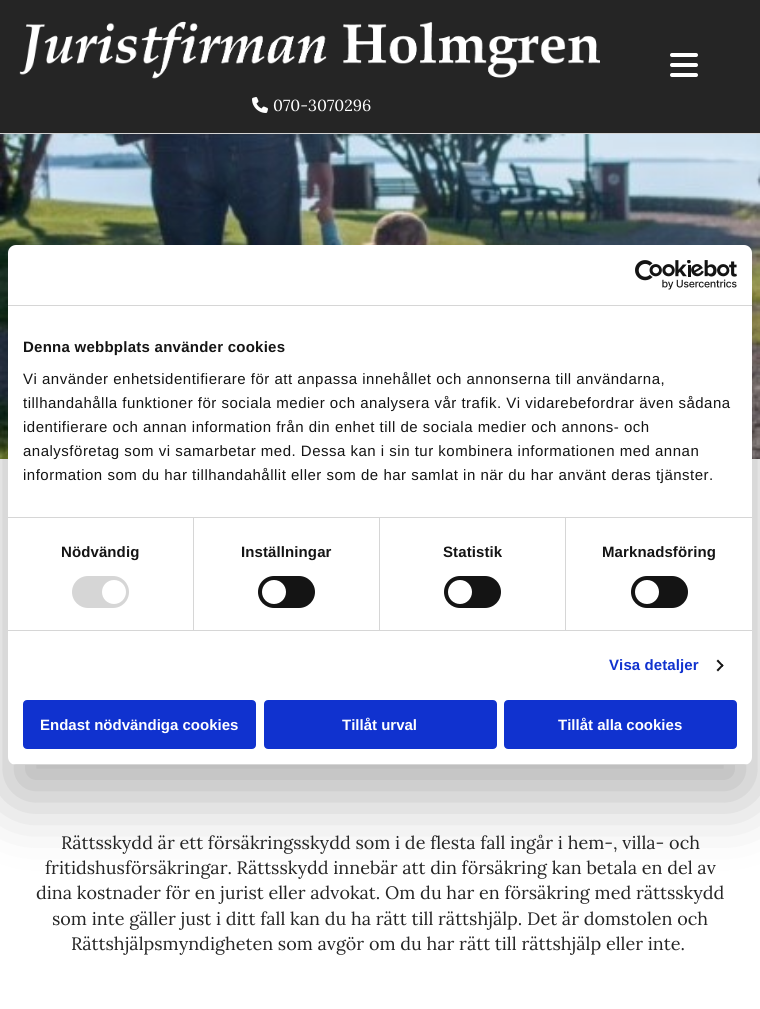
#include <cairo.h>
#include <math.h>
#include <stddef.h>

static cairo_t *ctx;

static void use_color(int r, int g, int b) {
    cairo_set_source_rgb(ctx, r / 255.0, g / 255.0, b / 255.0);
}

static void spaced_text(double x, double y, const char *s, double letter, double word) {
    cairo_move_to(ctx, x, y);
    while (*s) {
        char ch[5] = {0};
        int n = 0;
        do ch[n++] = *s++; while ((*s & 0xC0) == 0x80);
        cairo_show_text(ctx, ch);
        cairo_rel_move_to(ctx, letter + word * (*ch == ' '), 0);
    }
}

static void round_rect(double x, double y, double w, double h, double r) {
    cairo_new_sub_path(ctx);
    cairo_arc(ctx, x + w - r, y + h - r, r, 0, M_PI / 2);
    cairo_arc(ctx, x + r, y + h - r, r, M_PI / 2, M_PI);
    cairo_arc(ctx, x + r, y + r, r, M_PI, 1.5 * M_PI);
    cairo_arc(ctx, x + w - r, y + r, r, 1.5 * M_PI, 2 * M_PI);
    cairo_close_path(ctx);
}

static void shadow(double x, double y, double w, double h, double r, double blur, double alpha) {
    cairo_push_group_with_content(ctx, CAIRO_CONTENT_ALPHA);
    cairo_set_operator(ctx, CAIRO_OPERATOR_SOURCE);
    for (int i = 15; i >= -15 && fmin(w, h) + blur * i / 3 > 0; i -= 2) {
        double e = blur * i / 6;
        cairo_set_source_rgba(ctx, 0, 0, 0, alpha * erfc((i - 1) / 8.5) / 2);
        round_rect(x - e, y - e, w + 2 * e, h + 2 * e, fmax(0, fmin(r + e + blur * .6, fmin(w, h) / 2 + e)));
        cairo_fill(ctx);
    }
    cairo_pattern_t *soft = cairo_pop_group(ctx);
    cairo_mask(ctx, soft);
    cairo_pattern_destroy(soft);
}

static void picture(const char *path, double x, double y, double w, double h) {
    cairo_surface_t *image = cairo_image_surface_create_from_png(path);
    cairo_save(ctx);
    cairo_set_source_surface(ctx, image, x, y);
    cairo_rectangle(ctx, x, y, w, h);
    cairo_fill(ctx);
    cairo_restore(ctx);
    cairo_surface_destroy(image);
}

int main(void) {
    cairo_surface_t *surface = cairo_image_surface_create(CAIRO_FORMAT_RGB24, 760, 1009);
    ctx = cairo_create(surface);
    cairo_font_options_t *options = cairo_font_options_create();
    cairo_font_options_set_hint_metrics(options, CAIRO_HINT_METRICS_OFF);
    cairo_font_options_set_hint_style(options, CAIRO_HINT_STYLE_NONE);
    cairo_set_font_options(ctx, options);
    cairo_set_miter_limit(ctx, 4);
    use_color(255, 255, 255);
    cairo_paint(ctx);
    use_color(37, 37, 37);
    cairo_rectangle(ctx, 0, 0, 760, 133);
    cairo_fill(ctx);
    use_color(212, 212, 212);
    cairo_rectangle(ctx, 0, 133, 760, 1);
    cairo_fill(ctx);
    picture("img1.png", 670, 53, 28, 24);
    picture("img2.png", 19, 21, 581, 58);
    picture("img3.png", 252, 97, 16, 16);
    cairo_select_font_face(ctx, "Lora", CAIRO_FONT_SLANT_NORMAL, CAIRO_FONT_WEIGHT_NORMAL);
    cairo_set_font_size(ctx, 16);
    use_color(255, 255, 255);
    cairo_move_to(ctx, 273, 111);
    cairo_show_text(ctx, "070-3070296");
    picture("img4.png", 0, 134, 760, 325);
    cairo_set_font_size(ctx, 18);
    use_color(37, 37, 37);
    cairo_move_to(ctx, 61, 849);
    cairo_show_text(ctx, "Rättsskydd är ett försäkringsskydd som i de flesta fall ingår i hem-, villa- och");
    cairo_move_to(ctx, 45, 874);
    cairo_show_text(ctx, "fritidshusförsäkringar. Rättsskydd innebär att din försäkring kan betala en del av");
    cairo_move_to(ctx, 36, 899);
    cairo_show_text(ctx, "dina kostnader för en jurist eller advokat. Om du har en försäkring med rättsskydd");
    cairo_move_to(ctx, 52, 925);
    cairo_show_text(ctx, "som inte gäller just i ditt fall kan du ha rätt till rättshjälp. Det är domstolen och");
    cairo_move_to(ctx, 71, 950);
    cairo_show_text(ctx, "Rättshjälpsmyndigheten som avgör om du har rätt till rättshjälp eller inte.");
    use_color(0, 0, 0);
    shadow(8, 277, 744, 520, 8, 34, 0.3);
    use_color(255, 255, 255);
    round_rect(8, 245, 744, 520, 8);
    cairo_fill(ctx);
    use_color(214, 214, 214);
    cairo_rectangle(ctx, 8, 305, 744, 1);
    cairo_fill(ctx);
    picture("img5.png", 635, 260, 102, 30);
    cairo_rectangle(ctx, 8, 517, 744, 1);
    cairo_fill(ctx);
    cairo_select_font_face(ctx, "Liberation Sans", CAIRO_FONT_SLANT_NORMAL, CAIRO_FONT_WEIGHT_BOLD);
    cairo_set_font_size(ctx, 15);
    use_color(20, 20, 20);
    spaced_text(23, 352, "Denna webbplats använder cookies", 0.25, 0);
    cairo_select_font_face(ctx, "Liberation Sans", CAIRO_FONT_SLANT_NORMAL, CAIRO_FONT_WEIGHT_NORMAL);
    spaced_text(23, 384, "Vi använder enhetsidentifierare för att anpassa innehållet och annonserna till användarna,", 0.5, 0);
    spaced_text(23, 408, "tillhandahålla funktioner för sociala medier och analysera vår trafik. Vi vidarebefordrar även sådana", 0.5, 0);
    spaced_text(23, 432, "identifierare och annan information från din enhet till de sociala medier och annons- och", 0.5, 0);
    spaced_text(23, 456, "analysföretag som vi samarbetar med. Dessa kan i sin tur kombinera informationen med annan", 0.5, 0);
    spaced_text(23, 480, "information som du har tillhandahållit eller som de har samlat in när du har använt deras tjänster.", 0.5, 0);
    use_color(214, 214, 214);
    cairo_rectangle(ctx, 8, 630, 744, 1);
    cairo_fill(ctx);
    cairo_rectangle(ctx, 193, 518, 1, 112);
    cairo_fill(ctx);
    cairo_select_font_face(ctx, "Liberation Sans", CAIRO_FONT_SLANT_NORMAL, CAIRO_FONT_WEIGHT_BOLD);
    use_color(20, 20, 20);
    spaced_text(61, 557, "Nödvändig", 0.1, 0);
    use_color(214, 214, 214);
    round_rect(72, 576, 57, 32, 16);
    cairo_fill(ctx);
    use_color(255, 255, 255);
    cairo_arc(ctx, 114, 592, 12, 0, 2 * M_PI);
    cairo_fill(ctx);
    use_color(214, 214, 214);
    cairo_rectangle(ctx, 379, 518, 1, 112);
    cairo_fill(ctx);
    use_color(20, 20, 20);
    spaced_text(241, 557, "Inställningar", 0.1, 0);
    round_rect(258, 576, 57, 32, 16);
    cairo_fill(ctx);
    use_color(255, 255, 255);
    cairo_arc(ctx, 274, 592, 12, 0, 2 * M_PI);
    cairo_fill(ctx);
    use_color(214, 214, 214);
    cairo_rectangle(ctx, 565, 518, 1, 112);
    cairo_fill(ctx);
    use_color(20, 20, 20);
    spaced_text(443, 557, "Statistik", 0.1, 0);
    round_rect(444, 576, 57, 32, 16);
    cairo_fill(ctx);
    use_color(255, 255, 255);
    cairo_arc(ctx, 460, 592, 12, 0, 2 * M_PI);
    cairo_fill(ctx);
    use_color(20, 20, 20);
    spaced_text(602, 557, "Marknadsföring", 0.1, 0);
    round_rect(631, 576, 57, 32, 16);
    cairo_fill(ctx);
    use_color(255, 255, 255);
    cairo_arc(ctx, 647, 592, 12, 0, 2 * M_PI);
    cairo_fill(ctx);
    use_color(16, 50, 207);
    spaced_text(609, 670, "Visa detaljer", 0.1, 0);
    use_color(20, 20, 20);
    cairo_new_path(ctx);
    cairo_move_to(ctx, 718, 659.5);
    cairo_line_to(ctx, 723.5, 665.5);
    cairo_line_to(ctx, 722.5, 667);
    cairo_line_to(ctx, 716.5, 661);
    cairo_close_path(ctx);
    cairo_fill(ctx);
    cairo_new_path(ctx);
    cairo_move_to(ctx, 722.5, 664);
    cairo_line_to(ctx, 723.5, 665.5);
    cairo_line_to(ctx, 718, 671.5);
    cairo_line_to(ctx, 716.5, 670);
    cairo_close_path(ctx);
    cairo_fill(ctx);
    cairo_save(ctx);
    round_rect(8, 245, 744, 520, 8);
    cairo_clip(ctx);
    use_color(214, 214, 214);
    cairo_rectangle(ctx, 8, 764, 744, 1);
    cairo_fill(ctx);
    cairo_restore(ctx);
    use_color(16, 50, 207);
    round_rect(24, 701, 231, 47, 3);
    cairo_fill_preserve(ctx);
    cairo_stroke(ctx);
    use_color(255, 255, 255);
    cairo_move_to(ctx, 40, 730);
    cairo_show_text(ctx, "Endast nödvändiga cookies");
    use_color(16, 50, 207);
    round_rect(265, 701, 231, 47, 3);
    cairo_fill_preserve(ctx);
    cairo_stroke(ctx);
    use_color(255, 255, 255);
    cairo_move_to(ctx, 342, 730);
    cairo_show_text(ctx, "Tillåt urval");
    use_color(16, 50, 207);
    round_rect(505, 701, 231, 47, 3);
    cairo_fill_preserve(ctx);
    cairo_stroke(ctx);
    use_color(255, 255, 255);
    cairo_move_to(ctx, 558, 730);
    cairo_show_text(ctx, "Tillåt alla cookies");
    cairo_surface_write_to_png(surface, "result.png");
    cairo_font_options_destroy(options);
    cairo_destroy(ctx);
    cairo_surface_destroy(surface);
    return 0;
}
